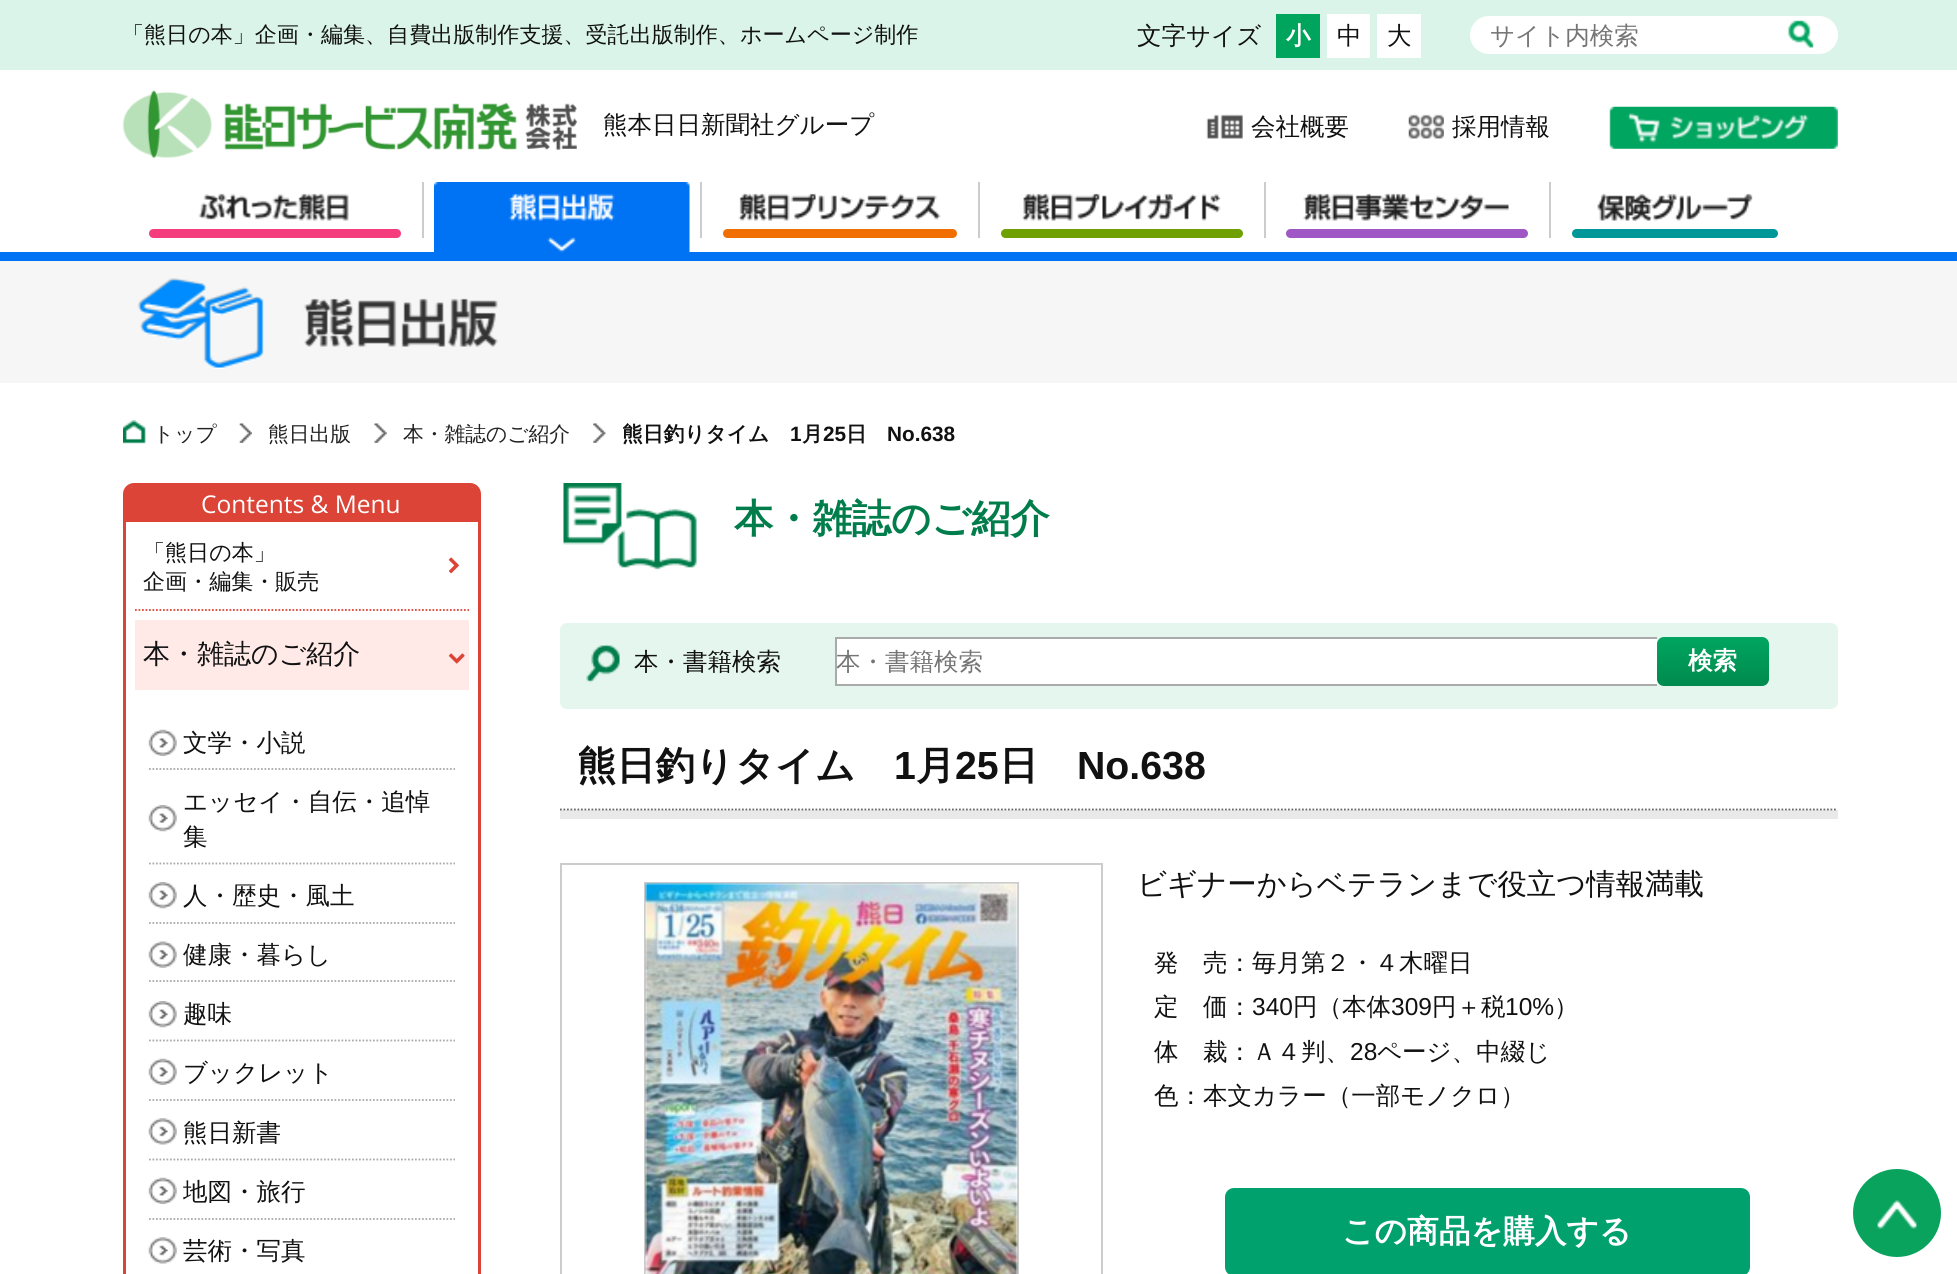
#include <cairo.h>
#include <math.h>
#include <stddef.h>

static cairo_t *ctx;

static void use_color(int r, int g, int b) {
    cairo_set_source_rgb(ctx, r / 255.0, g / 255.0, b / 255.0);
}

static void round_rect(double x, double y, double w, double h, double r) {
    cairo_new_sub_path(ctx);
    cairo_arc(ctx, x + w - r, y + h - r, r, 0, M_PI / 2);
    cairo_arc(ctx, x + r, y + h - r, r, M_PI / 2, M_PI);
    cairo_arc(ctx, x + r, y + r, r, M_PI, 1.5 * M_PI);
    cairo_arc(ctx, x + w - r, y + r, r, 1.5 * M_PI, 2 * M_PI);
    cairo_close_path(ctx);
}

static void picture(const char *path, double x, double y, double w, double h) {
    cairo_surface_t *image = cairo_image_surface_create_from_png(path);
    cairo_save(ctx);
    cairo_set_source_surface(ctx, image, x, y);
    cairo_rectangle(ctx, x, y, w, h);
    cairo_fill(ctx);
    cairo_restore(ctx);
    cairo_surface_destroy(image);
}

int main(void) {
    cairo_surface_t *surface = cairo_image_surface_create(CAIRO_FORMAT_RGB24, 1957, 1274);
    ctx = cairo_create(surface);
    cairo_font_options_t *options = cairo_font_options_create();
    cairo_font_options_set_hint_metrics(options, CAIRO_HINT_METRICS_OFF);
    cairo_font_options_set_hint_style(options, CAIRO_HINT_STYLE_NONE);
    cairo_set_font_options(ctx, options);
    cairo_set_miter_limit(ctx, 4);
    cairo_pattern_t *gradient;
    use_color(255, 255, 255);
    cairo_paint(ctx);
    use_color(218, 244, 233);
    cairo_rectangle(ctx, 0, 0, 1957, 70);
    cairo_fill(ctx);
    cairo_select_font_face(ctx, "WenQuanYi Zen Hei Medium", CAIRO_FONT_SLANT_NORMAL, CAIRO_FONT_WEIGHT_NORMAL);
    cairo_set_font_size(ctx, 22.05);
    use_color(17, 17, 17);
    cairo_move_to(ctx, 122, 42);
    cairo_show_text(ctx, "「熊日の本」企画・編集、自費出版制作支援、受託出版制作、ホームページ制作");
    cairo_set_font_size(ctx, 24.5);
    cairo_move_to(ctx, 1137, 44);
    cairo_show_text(ctx, "文字サイズ");
    use_color(0, 165, 93);
    cairo_rectangle(ctx, 1276, 14, 44, 44);
    cairo_fill(ctx);
    cairo_select_font_face(ctx, "WenQuanYi Zen Hei", CAIRO_FONT_SLANT_NORMAL, CAIRO_FONT_WEIGHT_BOLD);
    use_color(255, 255, 255);
    cairo_move_to(ctx, 1286, 44);
    cairo_show_text(ctx, "小");
    cairo_rectangle(ctx, 1327, 14, 43, 44);
    cairo_fill(ctx);
    cairo_select_font_face(ctx, "WenQuanYi Zen Hei Medium", CAIRO_FONT_SLANT_NORMAL, CAIRO_FONT_WEIGHT_NORMAL);
    use_color(17, 17, 17);
    cairo_move_to(ctx, 1337, 44);
    cairo_show_text(ctx, "中");
    use_color(255, 255, 255);
    cairo_rectangle(ctx, 1377, 14, 44, 44);
    cairo_fill(ctx);
    use_color(17, 17, 17);
    cairo_move_to(ctx, 1387, 44);
    cairo_show_text(ctx, "大");
    use_color(255, 255, 255);
    round_rect(1470, 16, 368, 38, 19);
    cairo_fill(ctx);
    use_color(117, 117, 117);
    cairo_move_to(ctx, 1490, 44);
    cairo_show_text(ctx, "サイト内検索");
    picture("img1.png", 1787, 20, 27, 28);
    picture("img2.png", 122, 90, 455, 68);
    use_color(17, 17, 17);
    cairo_move_to(ctx, 603, 133);
    cairo_show_text(ctx, "熊本日日新聞社グループ");
    picture("img3.png", 1206, 114, 37, 25);
    cairo_move_to(ctx, 1251, 135);
    cairo_show_text(ctx, "会社概要");
    picture("img4.png", 1408, 114, 36, 25);
    cairo_move_to(ctx, 1452, 135);
    cairo_show_text(ctx, "採用情報");
    picture("img5.png", 1609, 106, 229, 43);
    use_color(0, 115, 245);
    cairo_rectangle(ctx, 0, 252, 1957, 9);
    cairo_fill(ctx);
    use_color(204, 204, 204);
    cairo_rectangle(ctx, 422, 182, 2, 56);
    cairo_fill(ctx);
    picture("img6.png", 198, 193, 151, 28);
    use_color(245, 61, 125);
    round_rect(149, 229, 252, 9, 4.5);
    cairo_fill(ctx);
    use_color(204, 204, 204);
    cairo_rectangle(ctx, 700, 182, 2, 56);
    cairo_fill(ctx);
    picture("img7.png", 434, 182, 256, 71);
    cairo_rectangle(ctx, 978, 182, 2, 56);
    cairo_fill(ctx);
    picture("img8.png", 738, 193, 203, 28);
    use_color(241, 110, 2);
    round_rect(723, 229, 234, 9, 4.5);
    cairo_fill(ctx);
    use_color(204, 204, 204);
    cairo_rectangle(ctx, 1264, 182, 2, 56);
    cairo_fill(ctx);
    picture("img9.png", 1022, 193, 199, 28);
    use_color(110, 160, 1);
    round_rect(1001, 229, 242, 9, 4.5);
    cairo_fill(ctx);
    use_color(204, 204, 204);
    cairo_rectangle(ctx, 1549, 182, 2, 56);
    cairo_fill(ctx);
    picture("img10.png", 1303, 193, 206, 28);
    use_color(159, 87, 197);
    round_rect(1286, 229, 242, 9, 4.5);
    cairo_fill(ctx);
    picture("img11.png", 1597, 193, 156, 28);
    use_color(0, 151, 153);
    round_rect(1572, 229, 206, 9, 4.5);
    cairo_fill(ctx);
    use_color(246, 246, 246);
    cairo_rectangle(ctx, 0, 261, 1957, 122);
    cairo_fill(ctx);
    picture("img12.png", 137, 278, 361, 91);
    picture("img13.png", 123, 420, 23, 24);
    cairo_set_font_size(ctx, 20.75);
    use_color(34, 34, 34);
    cairo_move_to(ctx, 153, 441);
    cairo_show_text(ctx, "トップ");
    picture("img14.png", 239, 423, 13, 20);
    cairo_move_to(ctx, 268, 441);
    cairo_show_text(ctx, "熊日出版");
    picture("img15.png", 374, 423, 13, 20);
    cairo_move_to(ctx, 403, 441);
    cairo_show_text(ctx, "本・雑誌のご紹介");
    picture("img16.png", 593, 423, 13, 20);
    cairo_select_font_face(ctx, "WenQuanYi Zen Hei", CAIRO_FONT_SLANT_NORMAL, CAIRO_FONT_WEIGHT_BOLD);
    use_color(17, 17, 17);
    cairo_move_to(ctx, 622, 441);
    cairo_show_text(ctx, "熊日釣りタイム");
    cairo_select_font_face(ctx, "Liberation Sans", CAIRO_FONT_SLANT_NORMAL, CAIRO_FONT_WEIGHT_BOLD);
    cairo_move_to(ctx, 790, 441);
    cairo_show_text(ctx, "1");
    cairo_select_font_face(ctx, "WenQuanYi Zen Hei", CAIRO_FONT_SLANT_NORMAL, CAIRO_FONT_WEIGHT_BOLD);
    cairo_move_to(ctx, 802, 441);
    cairo_show_text(ctx, "月");
    cairo_select_font_face(ctx, "Liberation Sans", CAIRO_FONT_SLANT_NORMAL, CAIRO_FONT_WEIGHT_BOLD);
    cairo_move_to(ctx, 823, 441);
    cairo_show_text(ctx, "25");
    cairo_select_font_face(ctx, "WenQuanYi Zen Hei", CAIRO_FONT_SLANT_NORMAL, CAIRO_FONT_WEIGHT_BOLD);
    cairo_move_to(ctx, 846, 441);
    cairo_show_text(ctx, "日");
    cairo_select_font_face(ctx, "Liberation Sans", CAIRO_FONT_SLANT_NORMAL, CAIRO_FONT_WEIGHT_BOLD);
    cairo_move_to(ctx, 887, 441);
    cairo_show_text(ctx, "No.638");
    cairo_new_path(ctx);
    cairo_move_to(ctx, 134, 485);
    cairo_line_to(ctx, 470, 485);
    cairo_curve_to(ctx, 475, 485, 479, 489, 479, 494);
    cairo_line_to(ctx, 479, 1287);
    cairo_line_to(ctx, 125, 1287);
    cairo_line_to(ctx, 125, 494);
    cairo_curve_to(ctx, 125, 489, 129, 485, 134, 485);
    cairo_close_path(ctx);
    use_color(219, 68, 55);
    cairo_set_line_width(ctx, 4);
    cairo_stroke(ctx);
    cairo_new_path(ctx);
    cairo_move_to(ctx, 133, 487);
    cairo_line_to(ctx, 471, 487);
    cairo_curve_to(ctx, 475, 487, 478, 490, 478, 494);
    cairo_line_to(ctx, 478, 522);
    cairo_line_to(ctx, 126, 522);
    cairo_line_to(ctx, 126, 494);
    cairo_curve_to(ctx, 126, 490, 129, 487, 133, 487);
    cairo_close_path(ctx);
    cairo_fill(ctx);
    cairo_select_font_face(ctx, "Open Sans", CAIRO_FONT_SLANT_NORMAL, CAIRO_FONT_WEIGHT_NORMAL);
    cairo_set_font_size(ctx, 24.5);
    use_color(255, 255, 255);
    cairo_move_to(ctx, 201, 513);
    cairo_show_text(ctx, "Contents & Menu");
    cairo_rectangle(ctx, 126, 522, 352, 752);
    cairo_fill(ctx);
    cairo_new_path(ctx);
    cairo_move_to(ctx, 135, 610);
    cairo_line_to(ctx, 469, 610);
    use_color(219, 68, 55);
    cairo_set_line_width(ctx, 1.8);
    cairo_set_dash(ctx, (double[]){1.75, 1.75}, 2, 0);
    cairo_stroke(ctx);
    cairo_select_font_face(ctx, "WenQuanYi Zen Hei Medium", CAIRO_FONT_SLANT_NORMAL, CAIRO_FONT_WEIGHT_NORMAL);
    cairo_set_font_size(ctx, 22.05);
    use_color(17, 17, 17);
    cairo_move_to(ctx, 143, 560);
    cairo_show_text(ctx, "「熊日の本」");
    picture("img17.png", 448, 557, 11, 17);
    cairo_move_to(ctx, 143, 589);
    cairo_show_text(ctx, "企画・編集・販売");
    use_color(255, 234, 232);
    cairo_rectangle(ctx, 135, 620, 334, 70);
    cairo_fill(ctx);
    cairo_set_font_size(ctx, 27);
    use_color(17, 17, 17);
    cairo_move_to(ctx, 143, 663);
    cairo_show_text(ctx, "本・雑誌のご紹介");
    picture("img18.png", 448, 653, 17, 11);
    cairo_new_path(ctx);
    cairo_move_to(ctx, 149, 769);
    cairo_line_to(ctx, 455, 769);
    use_color(170, 170, 170);
    cairo_stroke(ctx);
    picture("img19.png", 148, 729, 29, 27);
    cairo_set_font_size(ctx, 24.5);
    use_color(17, 17, 17);
    cairo_move_to(ctx, 183, 751);
    cairo_show_text(ctx, "文学・小説");
    cairo_new_path(ctx);
    cairo_move_to(ctx, 149, 863.5);
    cairo_line_to(ctx, 455, 863.5);
    use_color(170, 170, 170);
    cairo_stroke(ctx);
    picture("img20.png", 148, 805, 29, 27);
    use_color(17, 17, 17);
    cairo_move_to(ctx, 183, 810);
    cairo_show_text(ctx, "エッセイ・自伝・追悼");
    cairo_move_to(ctx, 183, 845);
    cairo_show_text(ctx, "集");
    cairo_new_path(ctx);
    cairo_move_to(ctx, 149, 923);
    cairo_line_to(ctx, 455, 923);
    use_color(170, 170, 170);
    cairo_stroke(ctx);
    picture("img20.png", 148, 882, 29, 27);
    use_color(17, 17, 17);
    cairo_move_to(ctx, 183, 904);
    cairo_show_text(ctx, "人・歴史・風土");
    cairo_new_path(ctx);
    cairo_move_to(ctx, 149, 981);
    cairo_line_to(ctx, 455, 981);
    use_color(170, 170, 170);
    cairo_stroke(ctx);
    picture("img21.png", 148, 941, 29, 27);
    use_color(17, 17, 17);
    cairo_move_to(ctx, 183, 963);
    cairo_show_text(ctx, "健康・暮らし");
    cairo_new_path(ctx);
    cairo_move_to(ctx, 149, 1040.5);
    cairo_line_to(ctx, 455, 1040.5);
    use_color(170, 170, 170);
    cairo_stroke(ctx);
    picture("img20.png", 148, 1001, 29, 27);
    use_color(17, 17, 17);
    cairo_move_to(ctx, 183, 1022);
    cairo_show_text(ctx, "趣味");
    cairo_new_path(ctx);
    cairo_move_to(ctx, 149, 1100);
    cairo_line_to(ctx, 455, 1100);
    use_color(170, 170, 170);
    cairo_stroke(ctx);
    picture("img19.png", 148, 1058, 29, 27);
    use_color(17, 17, 17);
    cairo_move_to(ctx, 183, 1081);
    cairo_show_text(ctx, "ブックレット");
    cairo_new_path(ctx);
    cairo_move_to(ctx, 149, 1159.5);
    cairo_line_to(ctx, 455, 1159.5);
    use_color(170, 170, 170);
    cairo_stroke(ctx);
    picture("img22.png", 148, 1118, 29, 27);
    use_color(17, 17, 17);
    cairo_move_to(ctx, 183, 1141);
    cairo_show_text(ctx, "熊日新書");
    cairo_new_path(ctx);
    cairo_move_to(ctx, 149, 1219);
    cairo_line_to(ctx, 455, 1219);
    use_color(170, 170, 170);
    cairo_stroke(ctx);
    picture("img19.png", 148, 1177, 29, 27);
    use_color(17, 17, 17);
    cairo_move_to(ctx, 183, 1200);
    cairo_show_text(ctx, "地図・旅行");
    picture("img22.png", 148, 1237, 29, 27);
    cairo_move_to(ctx, 183, 1259);
    cairo_show_text(ctx, "芸術・写真");
    picture("img23.png", 563, 483, 134, 87);
    cairo_select_font_face(ctx, "WenQuanYi Zen Hei", CAIRO_FONT_SLANT_NORMAL, CAIRO_FONT_WEIGHT_BOLD);
    cairo_set_font_size(ctx, 39.25);
    use_color(0, 125, 75);
    cairo_move_to(ctx, 734, 532);
    cairo_show_text(ctx, "本・雑誌のご紹介");
    use_color(229, 246, 238);
    round_rect(560, 623, 1278, 86, 7);
    cairo_fill(ctx);
    picture("img24.png", 586, 644, 34, 39);
    cairo_select_font_face(ctx, "WenQuanYi Zen Hei Medium", CAIRO_FONT_SLANT_NORMAL, CAIRO_FONT_WEIGHT_NORMAL);
    cairo_set_font_size(ctx, 24.5);
    use_color(17, 17, 17);
    cairo_move_to(ctx, 634, 670);
    cairo_show_text(ctx, "本・書籍検索");
    use_color(255, 255, 255);
    cairo_rectangle(ctx, 837, 639, 820, 45);
    cairo_fill(ctx);
    use_color(170, 170, 170);
    cairo_rectangle(ctx, 835, 637, 822, 2);
    cairo_fill(ctx);
    cairo_rectangle(ctx, 835, 684, 822, 2);
    cairo_fill(ctx);
    cairo_rectangle(ctx, 835, 637, 2, 49);
    cairo_fill(ctx);
    cairo_save(ctx);
    cairo_rectangle(ctx, 837, 648, 820, 31);
    cairo_clip(ctx);
    use_color(117, 117, 117);
    cairo_move_to(ctx, 836, 670);
    cairo_show_text(ctx, "本・書籍検索");
    cairo_restore(ctx);
    gradient = cairo_pattern_create_linear(1713, 637, 1713, 686);
    cairo_pattern_add_color_stop_rgba(gradient, 0, 0, 0.647, 0.376, 1);
    cairo_pattern_add_color_stop_rgba(gradient, 1, 0, 0.541, 0.306, 1);
    cairo_set_source(ctx, gradient);
    cairo_pattern_destroy(gradient);
    round_rect(1657, 637, 112, 49, 7);
    cairo_fill(ctx);
    cairo_select_font_face(ctx, "WenQuanYi Zen Hei", CAIRO_FONT_SLANT_NORMAL, CAIRO_FONT_WEIGHT_BOLD);
    use_color(255, 255, 255);
    cairo_move_to(ctx, 1688, 669);
    cairo_show_text(ctx, "検索");
    use_color(233, 233, 233);
    cairo_new_path(ctx);
    cairo_move_to(ctx, 560, 810);
    cairo_line_to(ctx, 560, 819);
    cairo_line_to(ctx, 1838, 819);
    cairo_line_to(ctx, 1838, 753);
    cairo_line_to(ctx, 1838, 810);
    cairo_close_path(ctx);
    cairo_fill(ctx);
    cairo_new_path(ctx);
    cairo_move_to(ctx, 560, 809.5);
    cairo_line_to(ctx, 1837.5, 809.5);
    use_color(102, 102, 102);
    cairo_stroke(ctx);
    cairo_set_font_size(ctx, 39.25);
    use_color(17, 17, 17);
    cairo_move_to(ctx, 577, 779);
    cairo_show_text(ctx, "熊日釣りタイム");
    cairo_select_font_face(ctx, "Liberation Sans", CAIRO_FONT_SLANT_NORMAL, CAIRO_FONT_WEIGHT_BOLD);
    cairo_move_to(ctx, 894, 779);
    cairo_show_text(ctx, "1");
    cairo_select_font_face(ctx, "WenQuanYi Zen Hei", CAIRO_FONT_SLANT_NORMAL, CAIRO_FONT_WEIGHT_BOLD);
    cairo_move_to(ctx, 916, 779);
    cairo_show_text(ctx, "月");
    cairo_select_font_face(ctx, "Liberation Sans", CAIRO_FONT_SLANT_NORMAL, CAIRO_FONT_WEIGHT_BOLD);
    cairo_move_to(ctx, 955, 779);
    cairo_show_text(ctx, "25");
    cairo_select_font_face(ctx, "WenQuanYi Zen Hei", CAIRO_FONT_SLANT_NORMAL, CAIRO_FONT_WEIGHT_BOLD);
    cairo_move_to(ctx, 999, 779);
    cairo_show_text(ctx, "日");
    cairo_select_font_face(ctx, "Liberation Sans", CAIRO_FONT_SLANT_NORMAL, CAIRO_FONT_WEIGHT_BOLD);
    cairo_move_to(ctx, 1077, 779);
    cairo_show_text(ctx, "No.638");
    cairo_rectangle(ctx, 561, 864, 541, 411);
    use_color(204, 204, 204);
    cairo_set_line_width(ctx, 2);
    cairo_set_dash(ctx, NULL, 0, 0);
    cairo_stroke(ctx);
    cairo_rectangle(ctx, 645, 883, 373, 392);
    cairo_stroke(ctx);
    picture("img25.png", 645, 883, 373, 391);
    cairo_select_font_face(ctx, "WenQuanYi Zen Hei Medium", CAIRO_FONT_SLANT_NORMAL, CAIRO_FONT_WEIGHT_NORMAL);
    cairo_set_font_size(ctx, 29.4);
    use_color(17, 17, 17);
    cairo_move_to(ctx, 1137, 894);
    cairo_show_text(ctx, "ビギナーからベテランまで役立つ情報満載");
    cairo_set_font_size(ctx, 24.5);
    cairo_move_to(ctx, 1154, 971);
    cairo_show_text(ctx, "発　売：毎月第２・４木曜日");
    cairo_move_to(ctx, 1154, 1015);
    cairo_show_text(ctx, "定　価：");
    cairo_select_font_face(ctx, "Liberation Sans", CAIRO_FONT_SLANT_NORMAL, CAIRO_FONT_WEIGHT_NORMAL);
    cairo_move_to(ctx, 1252, 1015);
    cairo_show_text(ctx, "340");
    cairo_select_font_face(ctx, "WenQuanYi Zen Hei Medium", CAIRO_FONT_SLANT_NORMAL, CAIRO_FONT_WEIGHT_NORMAL);
    cairo_move_to(ctx, 1293, 1015);
    cairo_show_text(ctx, "円（本体");
    cairo_select_font_face(ctx, "Liberation Sans", CAIRO_FONT_SLANT_NORMAL, CAIRO_FONT_WEIGHT_NORMAL);
    cairo_move_to(ctx, 1391, 1015);
    cairo_show_text(ctx, "309");
    cairo_select_font_face(ctx, "WenQuanYi Zen Hei Medium", CAIRO_FONT_SLANT_NORMAL, CAIRO_FONT_WEIGHT_NORMAL);
    cairo_move_to(ctx, 1432, 1015);
    cairo_show_text(ctx, "円＋税");
    cairo_select_font_face(ctx, "Liberation Sans", CAIRO_FONT_SLANT_NORMAL, CAIRO_FONT_WEIGHT_NORMAL);
    cairo_move_to(ctx, 1505, 1015);
    cairo_show_text(ctx, "10%");
    cairo_select_font_face(ctx, "WenQuanYi Zen Hei Medium", CAIRO_FONT_SLANT_NORMAL, CAIRO_FONT_WEIGHT_NORMAL);
    cairo_move_to(ctx, 1554, 1015);
    cairo_show_text(ctx, "）");
    cairo_move_to(ctx, 1154, 1060);
    cairo_show_text(ctx, "体　裁：Ａ４判、");
    cairo_select_font_face(ctx, "Liberation Sans", CAIRO_FONT_SLANT_NORMAL, CAIRO_FONT_WEIGHT_NORMAL);
    cairo_move_to(ctx, 1350, 1060);
    cairo_show_text(ctx, "28");
    cairo_select_font_face(ctx, "WenQuanYi Zen Hei Medium", CAIRO_FONT_SLANT_NORMAL, CAIRO_FONT_WEIGHT_NORMAL);
    cairo_move_to(ctx, 1377, 1060);
    cairo_show_text(ctx, "ページ、中綴じ");
    cairo_move_to(ctx, 1154, 1104);
    cairo_show_text(ctx, "色：本文カラー（一部モノクロ）");
    use_color(0, 161, 109);
    round_rect(1225, 1188, 525, 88, 9);
    cairo_fill(ctx);
    cairo_select_font_face(ctx, "WenQuanYi Zen Hei", CAIRO_FONT_SLANT_NORMAL, CAIRO_FONT_WEIGHT_BOLD);
    cairo_set_font_size(ctx, 31.75);
    use_color(255, 255, 255);
    cairo_move_to(ctx, 1342, 1242);
    cairo_show_text(ctx, "この商品を購入する");
    use_color(9, 163, 93);
    cairo_new_path(ctx);
    cairo_arc(ctx, 1897, 1213, 44, 0, 2 * M_PI);
    cairo_fill(ctx);
    picture("img26.png", 1877, 1200, 40, 29);
    cairo_surface_write_to_png(surface, "result.png");
    cairo_font_options_destroy(options);
    cairo_destroy(ctx);
    cairo_surface_destroy(surface);
    return 0;
}
